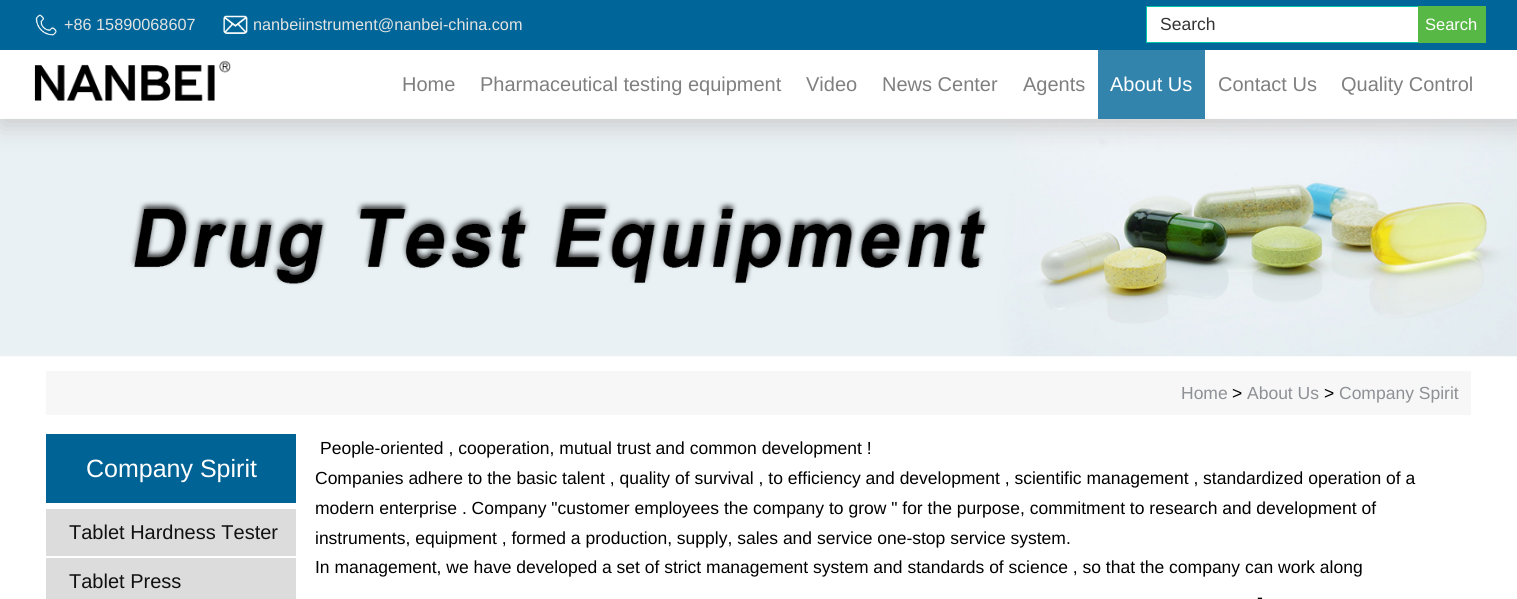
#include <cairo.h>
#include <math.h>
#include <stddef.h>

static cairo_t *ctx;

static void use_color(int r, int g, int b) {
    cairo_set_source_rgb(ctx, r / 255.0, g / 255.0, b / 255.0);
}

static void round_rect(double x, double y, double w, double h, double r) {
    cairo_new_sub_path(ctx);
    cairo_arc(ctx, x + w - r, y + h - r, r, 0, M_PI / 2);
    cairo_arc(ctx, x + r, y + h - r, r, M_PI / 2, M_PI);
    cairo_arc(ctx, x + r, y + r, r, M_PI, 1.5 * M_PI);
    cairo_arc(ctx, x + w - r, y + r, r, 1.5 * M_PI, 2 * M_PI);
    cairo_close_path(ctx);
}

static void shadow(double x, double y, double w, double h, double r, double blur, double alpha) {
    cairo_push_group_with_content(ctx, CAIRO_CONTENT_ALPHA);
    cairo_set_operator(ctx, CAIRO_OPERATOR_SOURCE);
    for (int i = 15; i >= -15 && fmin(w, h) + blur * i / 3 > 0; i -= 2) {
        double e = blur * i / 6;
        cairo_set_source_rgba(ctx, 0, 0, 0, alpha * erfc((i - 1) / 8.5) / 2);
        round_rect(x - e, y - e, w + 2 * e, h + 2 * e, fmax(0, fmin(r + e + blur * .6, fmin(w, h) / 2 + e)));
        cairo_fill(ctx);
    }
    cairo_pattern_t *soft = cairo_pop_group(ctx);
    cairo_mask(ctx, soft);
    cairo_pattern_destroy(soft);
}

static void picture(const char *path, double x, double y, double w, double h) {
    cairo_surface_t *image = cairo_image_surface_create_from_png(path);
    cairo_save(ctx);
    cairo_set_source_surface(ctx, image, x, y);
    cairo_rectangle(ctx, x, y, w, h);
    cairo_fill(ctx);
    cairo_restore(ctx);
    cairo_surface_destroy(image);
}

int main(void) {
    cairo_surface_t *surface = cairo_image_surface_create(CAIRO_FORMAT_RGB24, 1517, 599);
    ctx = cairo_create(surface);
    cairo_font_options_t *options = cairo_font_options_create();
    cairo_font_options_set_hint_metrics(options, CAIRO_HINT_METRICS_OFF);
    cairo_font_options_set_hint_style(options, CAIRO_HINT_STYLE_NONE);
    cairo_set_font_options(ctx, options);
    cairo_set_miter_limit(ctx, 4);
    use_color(255, 255, 255);
    cairo_paint(ctx);
    picture("img4.png", 0, 118, 1517, 239);
    cairo_save(ctx);
    cairo_set_fill_rule(ctx, CAIRO_FILL_RULE_EVEN_ODD);
    cairo_new_path(ctx);
    cairo_move_to(ctx, 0, 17);
    cairo_line_to(ctx, 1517, 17);
    cairo_line_to(ctx, 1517, 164);
    cairo_line_to(ctx, 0, 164);
    cairo_close_path(ctx);
    cairo_move_to(ctx, 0, 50);
    cairo_line_to(ctx, 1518, 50);
    cairo_line_to(ctx, 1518, 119);
    cairo_line_to(ctx, 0, 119);
    cairo_close_path(ctx);
    cairo_clip(ctx);
    use_color(201, 199, 199);
    shadow(1, 56, 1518, 69, 0, 12.5, 1);
    cairo_restore(ctx);
    use_color(0, 102, 153);
    cairo_rectangle(ctx, 0, 0, 1517, 50);
    cairo_fill(ctx);
    picture("img1.png", 35, 14, 22, 22);
    cairo_select_font_face(ctx, "Liberation Sans", CAIRO_FONT_SLANT_NORMAL, CAIRO_FONT_WEIGHT_NORMAL);
    cairo_set_font_size(ctx, 16.25);
    use_color(227, 227, 227);
    cairo_move_to(ctx, 64, 30);
    cairo_show_text(ctx, "+86 15890068607");
    picture("img2.png", 223, 15, 25, 19);
    cairo_move_to(ctx, 253, 30);
    cairo_show_text(ctx, "nanbeiinstrument@nanbei-china.com");
    use_color(255, 255, 255);
    cairo_rectangle(ctx, 1147, 7, 271, 35);
    cairo_fill(ctx);
    cairo_rectangle(ctx, 1146.5, 6.5, 302, 36);
    use_color(0, 199, 168);
    cairo_set_line_width(ctx, 1);
    cairo_stroke(ctx);
    cairo_set_font_size(ctx, 17.5);
    use_color(51, 51, 51);
    cairo_move_to(ctx, 1160, 30);
    cairo_show_text(ctx, "Search");
    use_color(88, 184, 70);
    cairo_rectangle(ctx, 1418, 6, 68, 37);
    cairo_fill(ctx);
    cairo_set_font_size(ctx, 16.5);
    use_color(255, 255, 255);
    cairo_move_to(ctx, 1425, 30);
    cairo_show_text(ctx, "Search");
    picture("img3.png", 34, 60, 197, 41);
    cairo_set_font_size(ctx, 20);
    use_color(127, 127, 127);
    cairo_move_to(ctx, 402, 91);
    cairo_show_text(ctx, "Home");
    cairo_move_to(ctx, 480, 91);
    cairo_show_text(ctx, "Pharmaceutical testing equipment");
    cairo_move_to(ctx, 806, 91);
    cairo_show_text(ctx, "Video");
    cairo_move_to(ctx, 882, 91);
    cairo_show_text(ctx, "News Center");
    cairo_move_to(ctx, 1023, 91);
    cairo_show_text(ctx, "Agents");
    cairo_set_source_rgba(ctx, 0, 0.4, 0.6, 0.8);
    cairo_rectangle(ctx, 1098, 50, 107, 69);
    cairo_fill(ctx);
    use_color(255, 255, 255);
    cairo_move_to(ctx, 1110, 91);
    cairo_show_text(ctx, "About Us");
    use_color(127, 127, 127);
    cairo_move_to(ctx, 1218, 91);
    cairo_show_text(ctx, "Contact Us");
    cairo_move_to(ctx, 1341, 91);
    cairo_show_text(ctx, "Quality Control");
    use_color(247, 247, 247);
    cairo_rectangle(ctx, 46, 371, 1425, 44);
    cairo_fill(ctx);
    cairo_set_font_size(ctx, 17.5);
    use_color(141, 144, 149);
    cairo_move_to(ctx, 1181, 399);
    cairo_show_text(ctx, "Home");
    use_color(0, 0, 0);
    cairo_move_to(ctx, 1232, 399);
    cairo_show_text(ctx, ">");
    use_color(141, 144, 149);
    cairo_move_to(ctx, 1247, 399);
    cairo_show_text(ctx, "About Us");
    use_color(0, 0, 0);
    cairo_move_to(ctx, 1324, 399);
    cairo_show_text(ctx, ">");
    use_color(141, 144, 149);
    cairo_move_to(ctx, 1339, 399);
    cairo_show_text(ctx, "Company Spirit");
    use_color(0, 99, 149);
    cairo_rectangle(ctx, 46, 434, 250, 69);
    cairo_fill(ctx);
    cairo_set_font_size(ctx, 25);
    use_color(255, 255, 255);
    cairo_move_to(ctx, 86, 477);
    cairo_show_text(ctx, "Company Spirit");
    use_color(220, 220, 220);
    cairo_rectangle(ctx, 46, 509, 250, 47);
    cairo_fill(ctx);
    cairo_set_font_size(ctx, 20);
    use_color(17, 17, 17);
    cairo_move_to(ctx, 69, 539);
    cairo_show_text(ctx, "Tablet Hardness Tester");
    use_color(220, 220, 220);
    cairo_rectangle(ctx, 46, 558, 250, 41);
    cairo_fill(ctx);
    use_color(17, 17, 17);
    cairo_move_to(ctx, 69, 588);
    cairo_show_text(ctx, "Tablet Press");
    cairo_set_font_size(ctx, 17.5);
    use_color(0, 0, 0);
    cairo_move_to(ctx, 320, 454);
    cairo_show_text(ctx, "People-oriented , cooperation, mutual trust and common development !");
    cairo_move_to(ctx, 315, 484);
    cairo_show_text(ctx, "Companies adhere to the basic talent , quality of survival , to efficiency and development , scientific management , standardized operation of a");
    cairo_move_to(ctx, 315, 514);
    cairo_show_text(ctx, "modern enterprise . Company \"customer employees the company to grow \" for the purpose, commitment to research and development of");
    cairo_move_to(ctx, 315, 544);
    cairo_show_text(ctx, "instruments, equipment , formed a production, supply, sales and service one-stop service system.");
    cairo_move_to(ctx, 315, 573);
    cairo_show_text(ctx, "In management, we have developed a set of strict management system and standards of science , so that the company can work along");
    cairo_move_to(ctx, 1257, 603);
    cairo_show_text(ctx, "-");
    cairo_surface_write_to_png(surface, "result.png");
    cairo_font_options_destroy(options);
    cairo_destroy(ctx);
    cairo_surface_destroy(surface);
    return 0;
}
